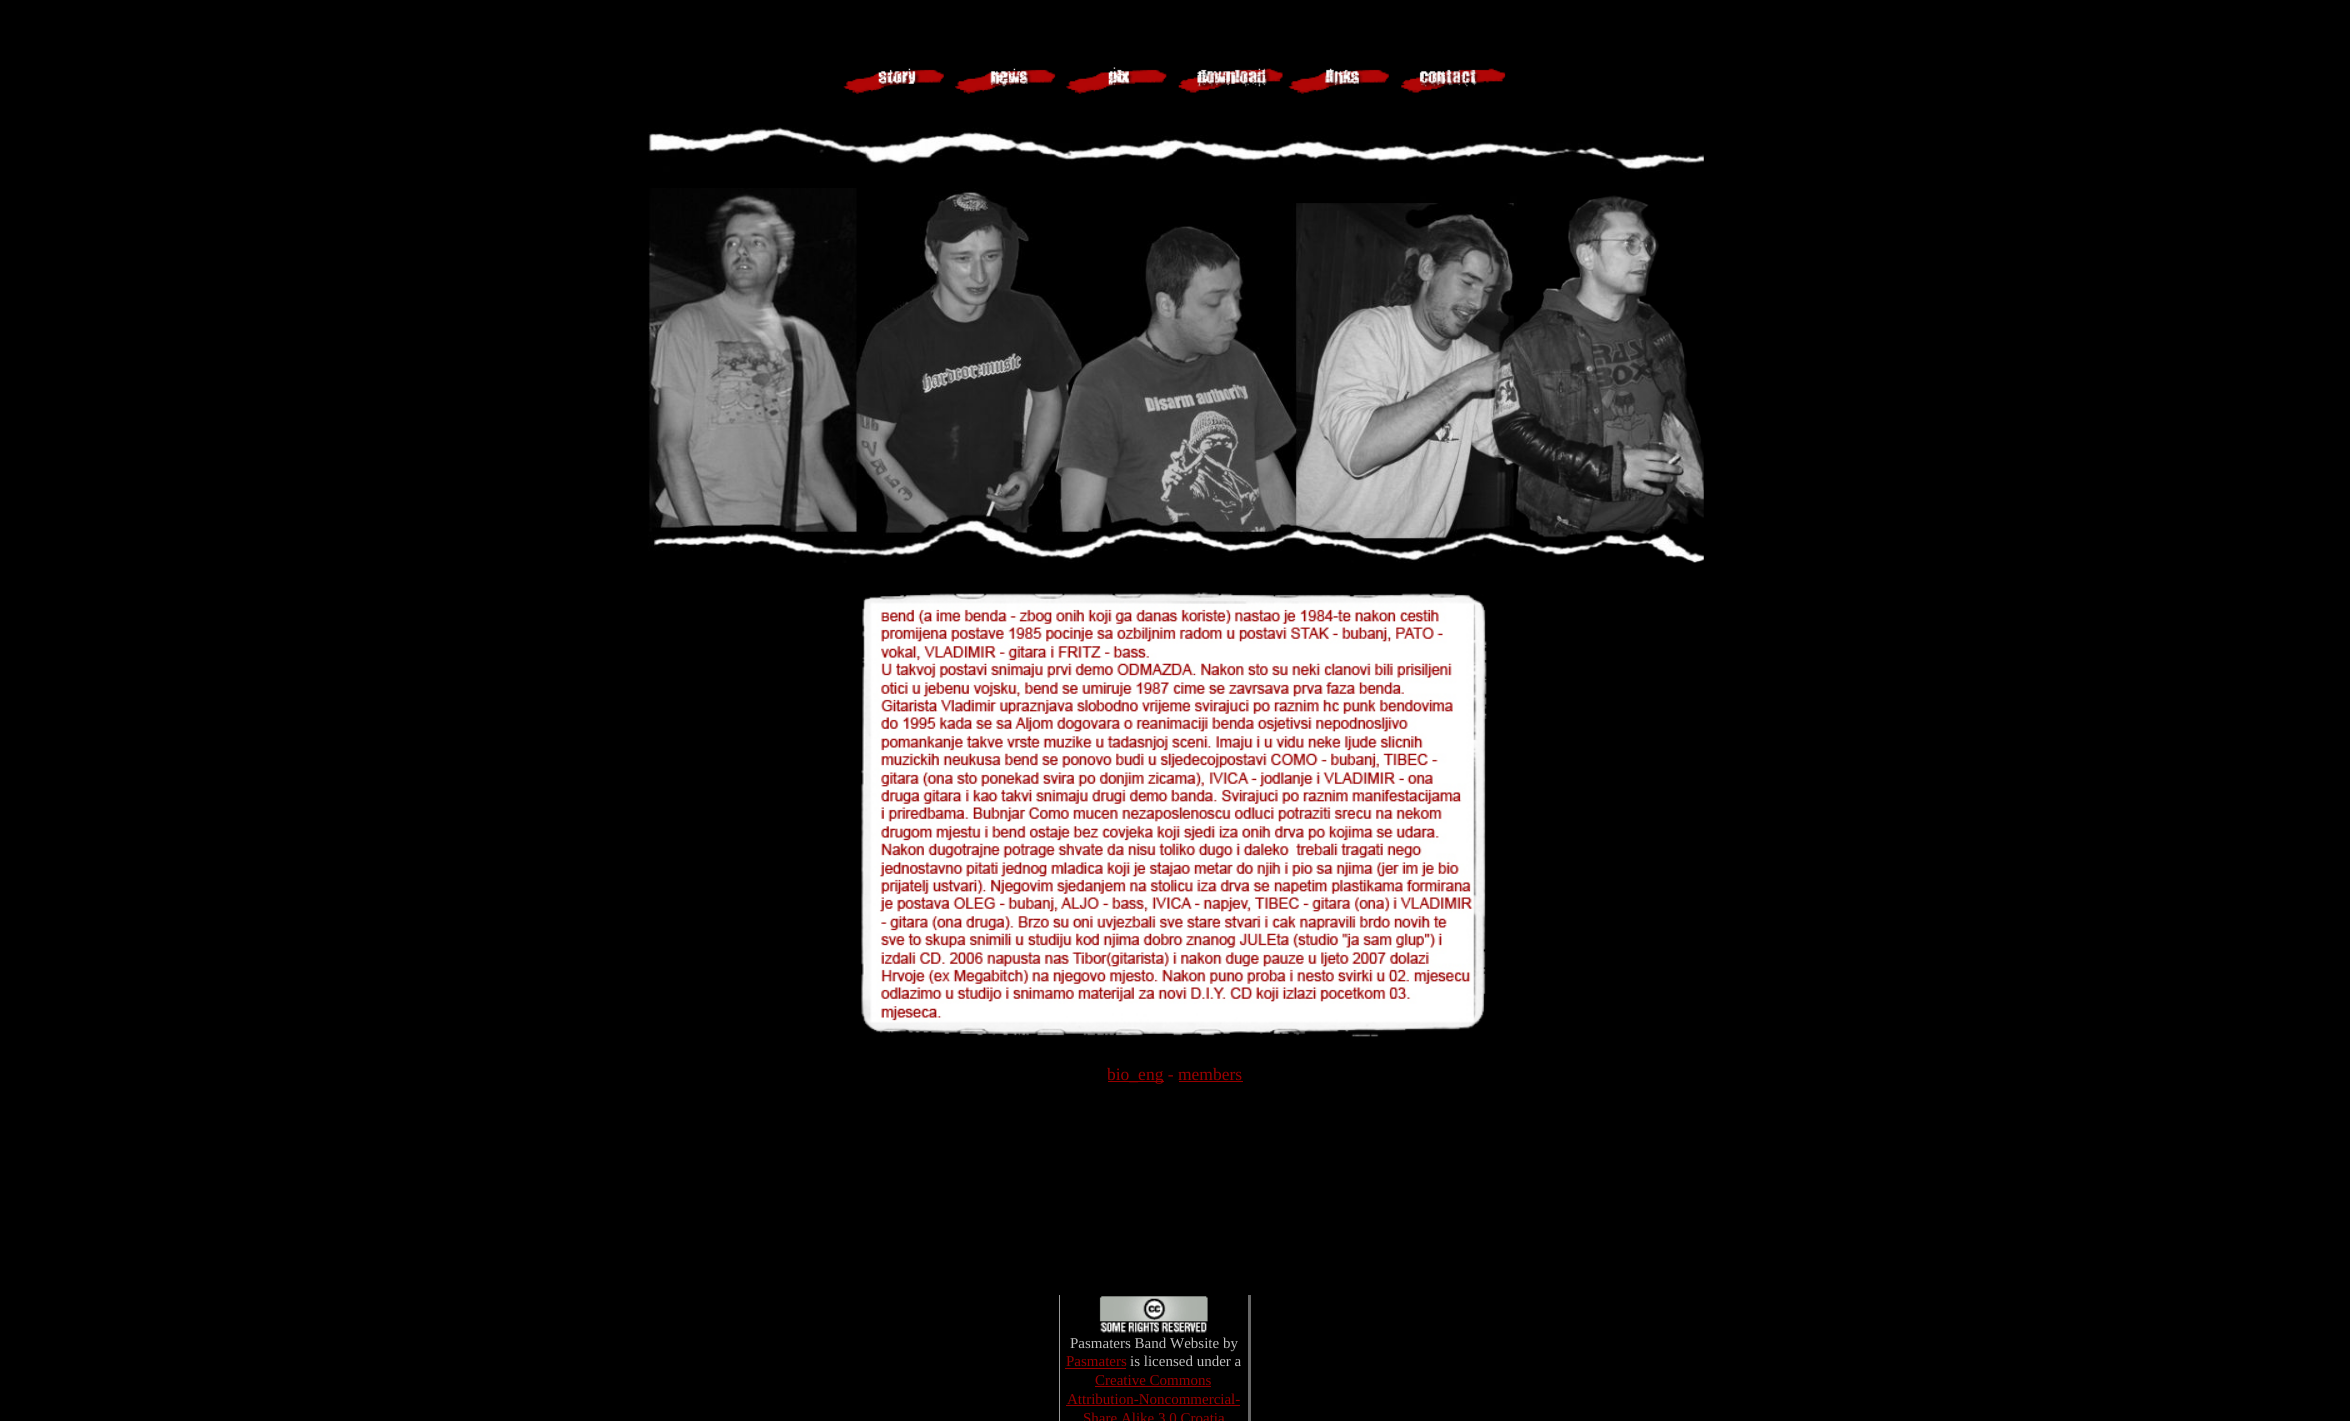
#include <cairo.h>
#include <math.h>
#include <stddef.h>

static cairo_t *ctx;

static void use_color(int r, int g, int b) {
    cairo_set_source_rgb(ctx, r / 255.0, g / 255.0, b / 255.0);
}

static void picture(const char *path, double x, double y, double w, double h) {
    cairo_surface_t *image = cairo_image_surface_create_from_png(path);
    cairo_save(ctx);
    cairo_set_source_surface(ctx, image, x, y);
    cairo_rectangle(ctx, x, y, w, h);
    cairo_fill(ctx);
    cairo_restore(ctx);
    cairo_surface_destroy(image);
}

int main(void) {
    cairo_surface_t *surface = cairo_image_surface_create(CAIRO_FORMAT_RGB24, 2350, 1421);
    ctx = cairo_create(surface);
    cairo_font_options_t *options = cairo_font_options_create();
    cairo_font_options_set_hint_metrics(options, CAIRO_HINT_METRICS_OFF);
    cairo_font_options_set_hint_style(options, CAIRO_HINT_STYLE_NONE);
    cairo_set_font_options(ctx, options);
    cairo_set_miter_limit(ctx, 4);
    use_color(0, 0, 0);
    cairo_paint(ctx);
    picture("img1.png", 843, 68, 101, 26);
    picture("img2.png", 955, 68, 101, 26);
    picture("img3.png", 1066, 67, 101, 27);
    picture("img4.png", 1178, 68, 105, 25);
    picture("img5.png", 1288, 68, 101, 26);
    picture("img6.png", 1401, 68, 105, 25);
    picture("img7.png", 648, 127, 1056, 436);
    picture("img8.png", 861, 592, 626, 445);
    use_color(153, 0, 0);
    cairo_rectangle(ctx, 1108, 1081, 56, 1);
    cairo_fill(ctx);
    cairo_select_font_face(ctx, "Liberation Serif", CAIRO_FONT_SLANT_NORMAL, CAIRO_FONT_WEIGHT_NORMAL);
    cairo_set_font_size(ctx, 17.5);
    cairo_move_to(ctx, 1107, 1080);
    cairo_show_text(ctx, "bio_eng - members");
    cairo_rectangle(ctx, 1179, 1081, 64, 1);
    cairo_fill(ctx);
    use_color(102, 102, 102);
    cairo_rectangle(ctx, 1248, 1295, 3, 126);
    cairo_fill(ctx);
    use_color(153, 153, 153);
    cairo_rectangle(ctx, 1059, 1295, 1, 126);
    cairo_fill(ctx);
    picture("img9.png", 1099, 1296, 109, 37);
    cairo_set_font_size(ctx, 15);
    use_color(192, 192, 192);
    cairo_move_to(ctx, 1070, 1348);
    cairo_show_text(ctx, "Pasmaters Band Website by");
    use_color(153, 0, 0);
    cairo_move_to(ctx, 1066, 1366);
    cairo_show_text(ctx, "Pasmaters");
    cairo_rectangle(ctx, 1065, 1368, 61, 1);
    cairo_fill(ctx);
    use_color(192, 192, 192);
    cairo_move_to(ctx, 1130, 1366);
    cairo_show_text(ctx, "is licensed under a");
    use_color(153, 0, 0);
    cairo_move_to(ctx, 1095, 1385);
    cairo_show_text(ctx, "Creative Commons");
    cairo_rectangle(ctx, 1095, 1386, 116, 1);
    cairo_fill(ctx);
    cairo_move_to(ctx, 1067, 1404);
    cairo_show_text(ctx, "Attribution-Noncommercial-");
    cairo_rectangle(ctx, 1066, 1405, 174, 1);
    cairo_fill(ctx);
    cairo_move_to(ctx, 1083, 1423);
    cairo_show_text(ctx, "Share Alike 3.0 Croatia");
    cairo_surface_write_to_png(surface, "result.png");
    cairo_font_options_destroy(options);
    cairo_destroy(ctx);
    cairo_surface_destroy(surface);
    return 0;
}
